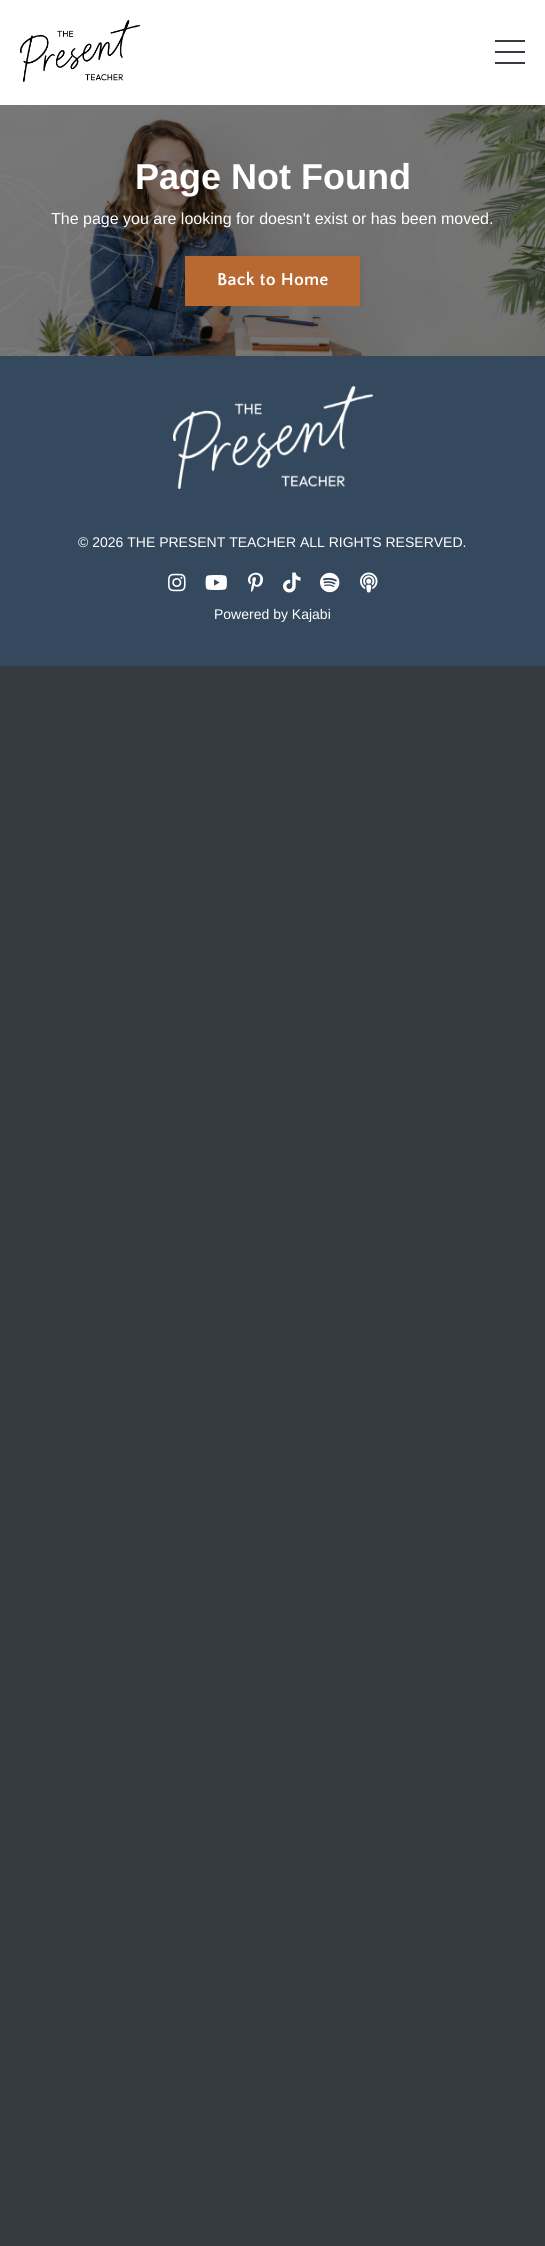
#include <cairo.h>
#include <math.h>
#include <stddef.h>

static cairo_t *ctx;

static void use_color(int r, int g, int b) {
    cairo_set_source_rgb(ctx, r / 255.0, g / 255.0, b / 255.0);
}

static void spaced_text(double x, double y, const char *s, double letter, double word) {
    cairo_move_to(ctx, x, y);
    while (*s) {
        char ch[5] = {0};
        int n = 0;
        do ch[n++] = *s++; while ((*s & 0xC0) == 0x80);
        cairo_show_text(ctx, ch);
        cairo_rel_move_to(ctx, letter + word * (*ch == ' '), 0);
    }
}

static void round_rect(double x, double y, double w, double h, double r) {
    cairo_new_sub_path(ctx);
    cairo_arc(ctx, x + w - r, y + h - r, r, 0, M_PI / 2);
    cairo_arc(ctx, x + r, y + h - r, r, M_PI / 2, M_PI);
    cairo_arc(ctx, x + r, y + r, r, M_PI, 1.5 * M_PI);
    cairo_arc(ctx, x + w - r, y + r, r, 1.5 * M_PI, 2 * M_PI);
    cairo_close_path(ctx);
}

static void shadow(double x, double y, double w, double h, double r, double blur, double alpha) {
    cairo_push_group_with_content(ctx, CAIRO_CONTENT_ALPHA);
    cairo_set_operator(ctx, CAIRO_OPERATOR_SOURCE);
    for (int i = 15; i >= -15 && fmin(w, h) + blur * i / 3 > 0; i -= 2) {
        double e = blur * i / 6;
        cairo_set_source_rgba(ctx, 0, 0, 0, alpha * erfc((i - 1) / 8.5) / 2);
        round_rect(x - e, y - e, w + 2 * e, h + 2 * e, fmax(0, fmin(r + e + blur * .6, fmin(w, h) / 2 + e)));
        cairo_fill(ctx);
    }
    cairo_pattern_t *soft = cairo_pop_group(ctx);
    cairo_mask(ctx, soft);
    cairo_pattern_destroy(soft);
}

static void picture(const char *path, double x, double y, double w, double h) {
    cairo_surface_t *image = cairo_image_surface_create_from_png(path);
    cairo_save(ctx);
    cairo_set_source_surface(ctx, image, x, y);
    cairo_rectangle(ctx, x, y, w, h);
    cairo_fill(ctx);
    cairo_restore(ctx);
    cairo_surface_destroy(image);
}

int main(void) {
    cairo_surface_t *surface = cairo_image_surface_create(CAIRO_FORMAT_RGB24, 545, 2246);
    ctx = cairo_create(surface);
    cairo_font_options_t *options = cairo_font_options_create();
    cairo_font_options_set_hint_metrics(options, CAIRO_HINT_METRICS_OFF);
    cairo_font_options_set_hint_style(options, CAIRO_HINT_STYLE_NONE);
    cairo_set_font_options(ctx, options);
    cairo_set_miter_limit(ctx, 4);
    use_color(52, 58, 64);
    cairo_paint(ctx);
    use_color(255, 255, 255);
    cairo_rectangle(ctx, 0, 0, 545, 105);
    cairo_fill(ctx);
    picture("img1.png", 20, 20, 120, 62);
    use_color(52, 58, 64);
    cairo_rectangle(ctx, 495, 40, 30, 2);
    cairo_fill(ctx);
    cairo_rectangle(ctx, 495, 51, 30, 2);
    cairo_fill(ctx);
    cairo_rectangle(ctx, 495, 62, 30, 2);
    cairo_fill(ctx);
    picture("img2.png", 0, 105, 545, 251);
    cairo_select_font_face(ctx, "Liberation Sans", CAIRO_FONT_SLANT_NORMAL, CAIRO_FONT_WEIGHT_BOLD);
    cairo_set_font_size(ctx, 36);
    use_color(255, 255, 255);
    cairo_move_to(ctx, 135, 189);
    cairo_show_text(ctx, "Page Not Found");
    cairo_select_font_face(ctx, "Liberation Sans", CAIRO_FONT_SLANT_NORMAL, CAIRO_FONT_WEIGHT_NORMAL);
    cairo_set_font_size(ctx, 16);
    cairo_move_to(ctx, 51, 224);
    cairo_show_text(ctx, "The page you are looking for doesn't exist or has been moved.");
    cairo_save(ctx);
    round_rect(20, 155, 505, 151, 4);
    cairo_clip(ctx);
    use_color(0, 0, 0);
    shadow(185, 258, 175, 50, 0, 5, 0.1);
    cairo_restore(ctx);
    use_color(184, 105, 49);
    cairo_rectangle(ctx, 185, 256, 175, 50);
    cairo_fill(ctx);
    cairo_select_font_face(ctx, "Quattrocento Sans", CAIRO_FONT_SLANT_NORMAL, CAIRO_FONT_WEIGHT_BOLD);
    cairo_set_font_size(ctx, 18);
    use_color(255, 255, 255);
    spaced_text(217, 285, "Back to Home", 0.25, 0);
    use_color(52, 73, 94);
    cairo_rectangle(ctx, 0, 356, 545, 310);
    cairo_fill(ctx);
    picture("img3.png", 173, 386, 200, 103);
    cairo_select_font_face(ctx, "Liberation Sans", CAIRO_FONT_SLANT_NORMAL, CAIRO_FONT_WEIGHT_NORMAL);
    cairo_set_font_size(ctx, 14);
    use_color(255, 255, 255);
    cairo_move_to(ctx, 78, 547);
    cairo_show_text(ctx, "© 2026 THE PRESENT TEACHER ALL RIGHTS RESERVED.");
    picture("img4.png", 168, 573, 18, 19);
    picture("img5.png", 205, 575, 22, 15);
    picture("img6.png", 248, 572, 15, 21);
    picture("img7.png", 283, 572, 18, 21);
    picture("img8.png", 320, 572, 20, 21);
    picture("img9.png", 360, 572, 18, 21);
    cairo_move_to(ctx, 214, 619);
    cairo_show_text(ctx, "Powered by Kajabi");
    cairo_surface_write_to_png(surface, "result.png");
    cairo_font_options_destroy(options);
    cairo_destroy(ctx);
    cairo_surface_destroy(surface);
    return 0;
}
